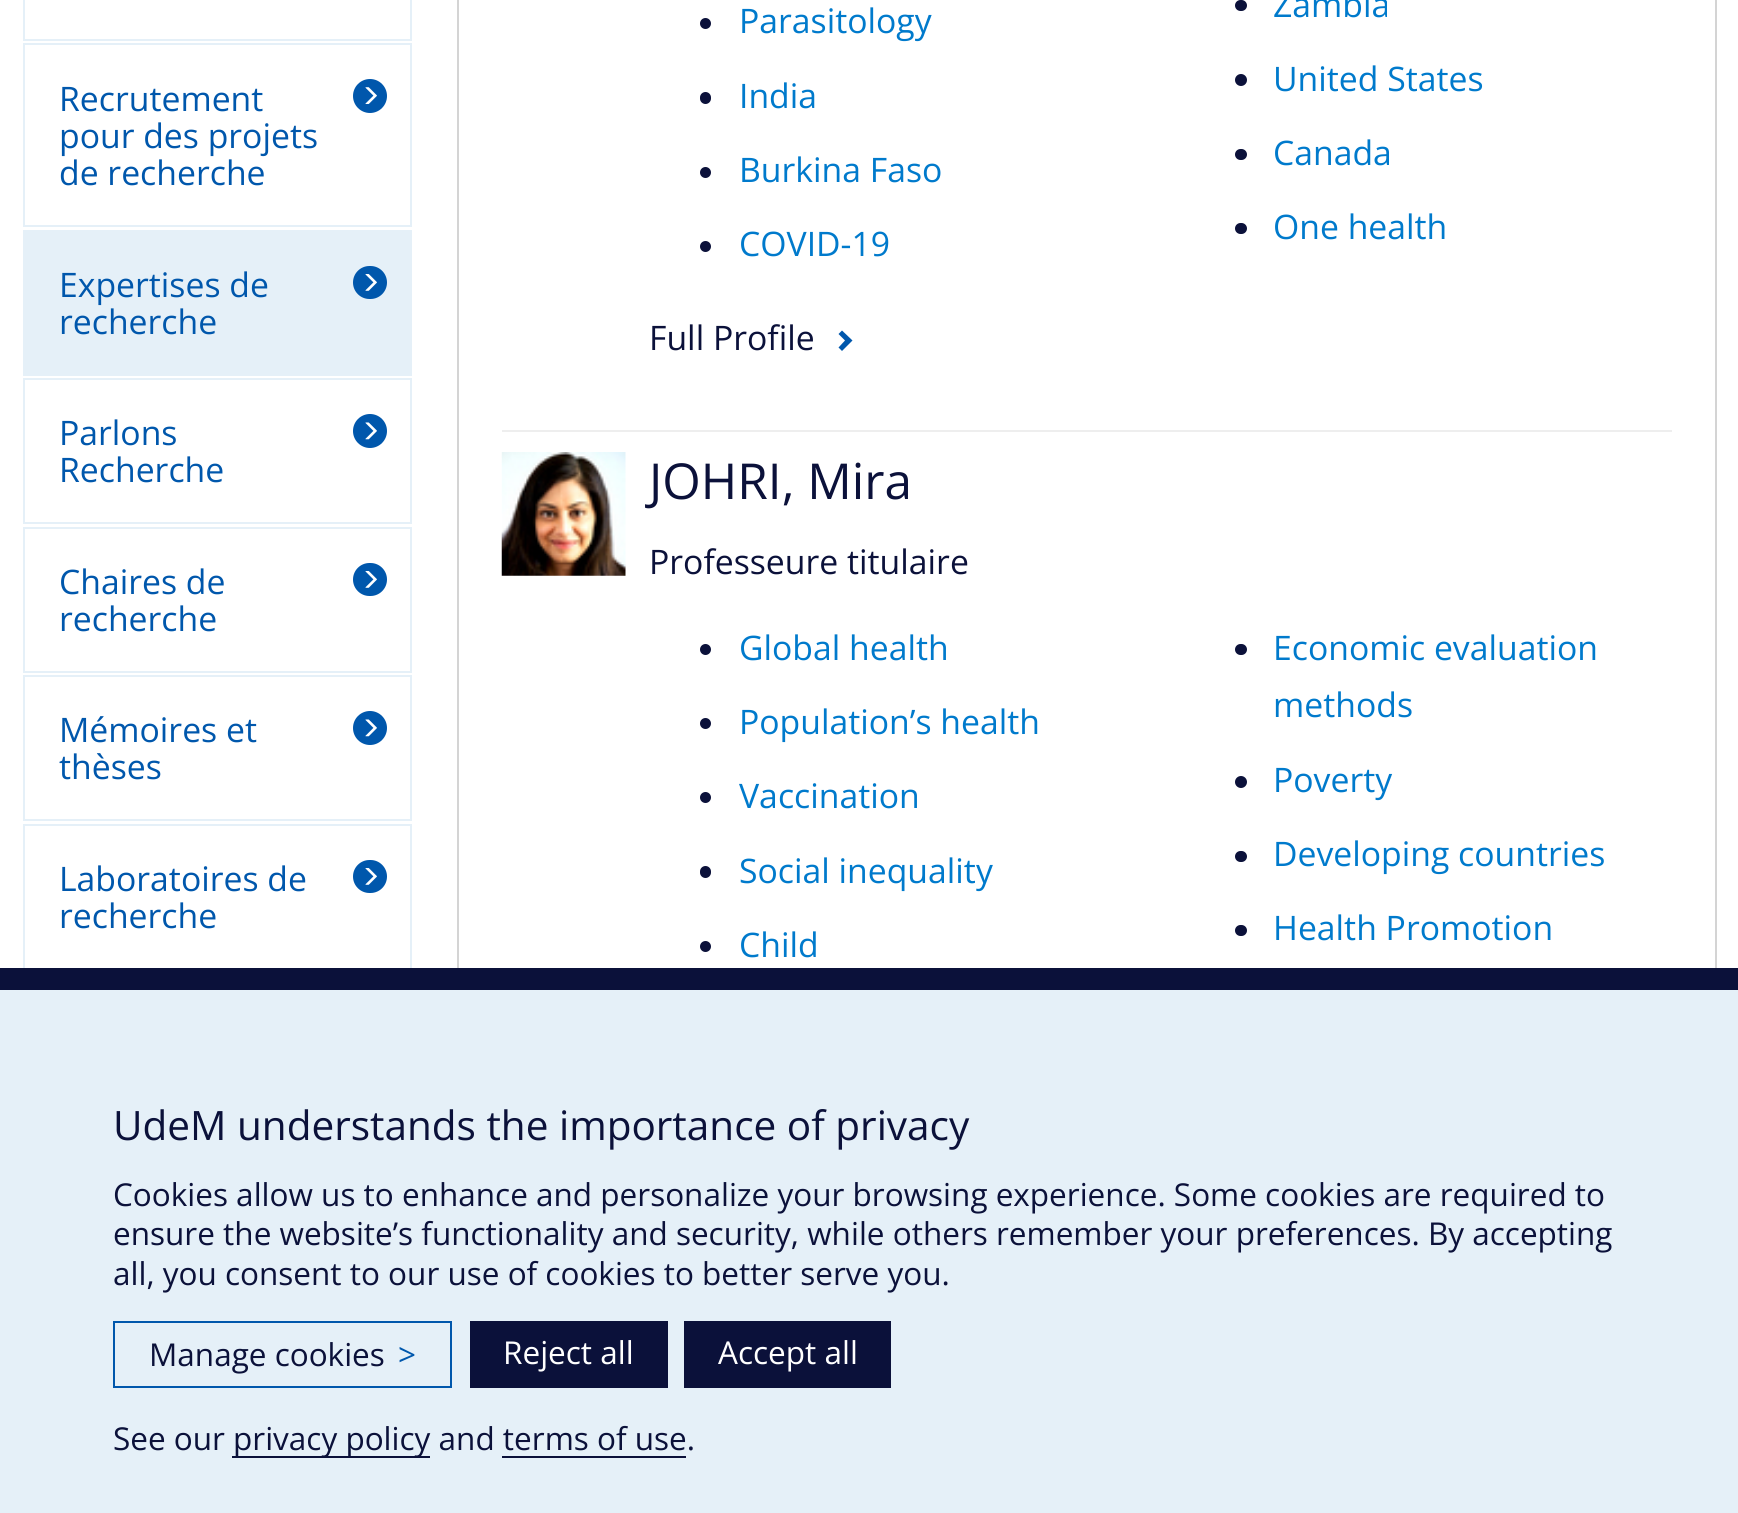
#include <cairo.h>
#include <math.h>
#include <stddef.h>

static cairo_t *ctx;

static void use_color(int r, int g, int b) {
    cairo_set_source_rgb(ctx, r / 255.0, g / 255.0, b / 255.0);
}

static void round_rect(double x, double y, double w, double h, double r) {
    cairo_new_sub_path(ctx);
    cairo_arc(ctx, x + w - r, y + h - r, r, 0, M_PI / 2);
    cairo_arc(ctx, x + r, y + h - r, r, M_PI / 2, M_PI);
    cairo_arc(ctx, x + r, y + r, r, M_PI, 1.5 * M_PI);
    cairo_arc(ctx, x + w - r, y + r, r, 1.5 * M_PI, 2 * M_PI);
    cairo_close_path(ctx);
}

static void picture(const char *path, double x, double y, double w, double h) {
    cairo_surface_t *image = cairo_image_surface_create_from_png(path);
    cairo_save(ctx);
    cairo_set_source_surface(ctx, image, x, y);
    cairo_rectangle(ctx, x, y, w, h);
    cairo_fill(ctx);
    cairo_restore(ctx);
    cairo_surface_destroy(image);
}

int main(void) {
    cairo_surface_t *surface = cairo_image_surface_create(CAIRO_FORMAT_RGB24, 1738, 1513);
    ctx = cairo_create(surface);
    cairo_font_options_t *options = cairo_font_options_create();
    cairo_font_options_set_hint_metrics(options, CAIRO_HINT_METRICS_OFF);
    cairo_font_options_set_hint_style(options, CAIRO_HINT_STYLE_NONE);
    cairo_set_font_options(ctx, options);
    cairo_set_miter_limit(ctx, 4);
    use_color(255, 255, 255);
    cairo_paint(ctx);
    cairo_rectangle(ctx, 24, -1, 387, 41);
    use_color(229, 240, 248);
    cairo_stroke(ctx);
    cairo_rectangle(ctx, 24, 44, 387, 182);
    cairo_stroke(ctx);
    cairo_select_font_face(ctx, "Open Sans", CAIRO_FONT_SLANT_NORMAL, CAIRO_FONT_WEIGHT_NORMAL);
    cairo_set_font_size(ctx, 33.75);
    use_color(0, 87, 172);
    cairo_move_to(ctx, 59, 111);
    cairo_show_text(ctx, "Recrutement");
    cairo_new_path(ctx);
    cairo_arc(ctx, 370, 96, 17, 0, 2 * M_PI);
    cairo_fill(ctx);
    picture("img1.png", 365, 87, 12, 17);
    cairo_move_to(ctx, 59, 148);
    cairo_show_text(ctx, "pour des projets");
    cairo_move_to(ctx, 59, 185);
    cairo_show_text(ctx, "de recherche");
    cairo_rectangle(ctx, 24, 231, 387, 144);
    use_color(229, 240, 248);
    cairo_stroke(ctx);
    cairo_rectangle(ctx, 25, 232, 385, 142);
    cairo_fill(ctx);
    use_color(0, 87, 172);
    cairo_move_to(ctx, 59, 297);
    cairo_show_text(ctx, "Expertises de");
    round_rect(353, 266, 34, 33, 16.5);
    cairo_fill(ctx);
    picture("img2.png", 365, 274, 12, 17);
    cairo_move_to(ctx, 59, 334);
    cairo_show_text(ctx, "recherche");
    cairo_rectangle(ctx, 24, 379, 387, 144);
    use_color(229, 240, 248);
    cairo_stroke(ctx);
    use_color(0, 87, 172);
    cairo_move_to(ctx, 59, 445);
    cairo_show_text(ctx, "Parlons");
    cairo_new_path(ctx);
    cairo_arc(ctx, 370, 431, 17, 0, 2 * M_PI);
    cairo_fill(ctx);
    picture("img3.png", 365, 422, 12, 18);
    cairo_move_to(ctx, 59, 482);
    cairo_show_text(ctx, "Recherche");
    cairo_rectangle(ctx, 24, 528, 387, 144);
    use_color(229, 240, 248);
    cairo_stroke(ctx);
    use_color(0, 87, 172);
    cairo_move_to(ctx, 59, 594);
    cairo_show_text(ctx, "Chaires de");
    round_rect(353, 563, 34, 33, 16.5);
    cairo_fill(ctx);
    picture("img2.png", 365, 571, 12, 17);
    cairo_move_to(ctx, 59, 631);
    cairo_show_text(ctx, "recherche");
    cairo_rectangle(ctx, 24, 676, 387, 144);
    use_color(229, 240, 248);
    cairo_stroke(ctx);
    use_color(0, 87, 172);
    cairo_move_to(ctx, 59, 742);
    cairo_show_text(ctx, "Mémoires et");
    cairo_new_path(ctx);
    cairo_arc(ctx, 370, 728, 17, 0, 2 * M_PI);
    cairo_fill(ctx);
    picture("img3.png", 365, 719, 12, 18);
    cairo_move_to(ctx, 59, 779);
    cairo_show_text(ctx, "thèses");
    cairo_rectangle(ctx, 24, 825, 387, 144);
    use_color(229, 240, 248);
    cairo_stroke(ctx);
    use_color(0, 87, 172);
    cairo_move_to(ctx, 59, 891);
    cairo_show_text(ctx, "Laboratoires de");
    round_rect(353, 860, 34, 33, 16.5);
    cairo_fill(ctx);
    picture("img2.png", 365, 868, 12, 17);
    cairo_move_to(ctx, 59, 928);
    cairo_show_text(ctx, "recherche");
    use_color(212, 212, 212);
    cairo_rectangle(ctx, 1715, 0, 2, 968);
    cairo_fill(ctx);
    cairo_rectangle(ctx, 457, 0, 2, 968);
    cairo_fill(ctx);
    use_color(11, 17, 58);
    cairo_arc(ctx, 705.5, 23.5, 5.5, 0, 2 * M_PI);
    cairo_fill(ctx);
    use_color(0, 122, 204);
    cairo_move_to(ctx, 739, 33);
    cairo_show_text(ctx, "Parasitology");
    use_color(11, 17, 58);
    round_rect(1235, 0, 12, 11, 5.5);
    cairo_fill(ctx);
    use_color(0, 122, 204);
    cairo_move_to(ctx, 1273, 17);
    cairo_show_text(ctx, "Zambia");
    use_color(11, 17, 58);
    cairo_new_path(ctx);
    cairo_arc(ctx, 1241, 80, 6, 0, 2 * M_PI);
    cairo_fill(ctx);
    use_color(0, 122, 204);
    cairo_move_to(ctx, 1273, 91);
    cairo_show_text(ctx, "United States");
    use_color(11, 17, 58);
    round_rect(700, 92, 11, 12, 5.5);
    cairo_fill(ctx);
    use_color(0, 122, 204);
    cairo_move_to(ctx, 739, 108);
    cairo_show_text(ctx, "India");
    use_color(11, 17, 58);
    round_rect(1235, 149, 12, 11, 5.5);
    cairo_fill(ctx);
    use_color(0, 122, 204);
    cairo_move_to(ctx, 1273, 165);
    cairo_show_text(ctx, "Canada");
    use_color(11, 17, 58);
    cairo_new_path(ctx);
    cairo_arc(ctx, 705.5, 172.5, 5.5, 0, 2 * M_PI);
    cairo_fill(ctx);
    use_color(0, 122, 204);
    cairo_move_to(ctx, 739, 182);
    cairo_show_text(ctx, "Burkina Faso");
    use_color(11, 17, 58);
    round_rect(1235, 223, 12, 11, 5.5);
    cairo_fill(ctx);
    use_color(0, 122, 204);
    cairo_move_to(ctx, 1273, 239);
    cairo_show_text(ctx, "One health");
    use_color(11, 17, 58);
    cairo_new_path(ctx);
    cairo_arc(ctx, 705.5, 246.5, 5.5, 0, 2 * M_PI);
    cairo_fill(ctx);
    use_color(0, 122, 204);
    cairo_move_to(ctx, 739, 256);
    cairo_show_text(ctx, "COVID-19");
    use_color(11, 17, 58);
    cairo_move_to(ctx, 649, 350);
    cairo_show_text(ctx, "Full Profile");
    use_color(0, 87, 172);
    cairo_new_path(ctx);
    cairo_move_to(ctx, 852.5, 340.5);
    cairo_line_to(ctx, 842, 351);
    cairo_line_to(ctx, 838.5, 347.5);
    cairo_line_to(ctx, 845, 340.5);
    cairo_line_to(ctx, 838.5, 334);
    cairo_line_to(ctx, 842, 330.5);
    cairo_close_path(ctx);
    cairo_fill(ctx);
    use_color(238, 238, 238);
    cairo_rectangle(ctx, 502, 430, 1170, 2);
    cairo_fill(ctx);
    picture("img4.png", 501, 452, 125, 124);
    cairo_set_font_size(ctx, 49.5);
    use_color(11, 17, 58);
    cairo_move_to(ctx, 649, 499);
    cairo_show_text(ctx, "JOHRI, Mira");
    cairo_set_font_size(ctx, 33.75);
    cairo_move_to(ctx, 649, 574);
    cairo_show_text(ctx, "Professeure titulaire");
    cairo_new_path(ctx);
    cairo_arc(ctx, 705.5, 649.5, 5.5, 0, 2 * M_PI);
    cairo_fill(ctx);
    use_color(0, 122, 204);
    cairo_move_to(ctx, 739, 660);
    cairo_show_text(ctx, "Global health");
    use_color(11, 17, 58);
    round_rect(1235, 644, 12, 11, 5.5);
    cairo_fill(ctx);
    use_color(0, 122, 204);
    cairo_move_to(ctx, 1273, 660);
    cairo_show_text(ctx, "Economic evaluation");
    cairo_move_to(ctx, 1273, 717);
    cairo_show_text(ctx, "methods");
    use_color(11, 17, 58);
    cairo_new_path(ctx);
    cairo_arc(ctx, 705.5, 723.5, 5.5, 0, 2 * M_PI);
    cairo_fill(ctx);
    use_color(0, 122, 204);
    cairo_move_to(ctx, 739, 734);
    cairo_show_text(ctx, "Population’s health");
    use_color(11, 17, 58);
    cairo_new_path(ctx);
    cairo_arc(ctx, 705.5, 797.5, 5.5, 0, 2 * M_PI);
    cairo_fill(ctx);
    use_color(0, 122, 204);
    cairo_move_to(ctx, 739, 808);
    cairo_show_text(ctx, "Vaccination");
    use_color(11, 17, 58);
    cairo_new_path(ctx);
    cairo_arc(ctx, 1241, 782, 6, 0, 2 * M_PI);
    cairo_fill(ctx);
    use_color(0, 122, 204);
    cairo_move_to(ctx, 1273, 792);
    cairo_show_text(ctx, "Poverty");
    use_color(11, 17, 58);
    round_rect(700, 866, 11, 12, 5.5);
    cairo_fill(ctx);
    use_color(0, 122, 204);
    cairo_move_to(ctx, 739, 883);
    cairo_show_text(ctx, "Social inequality");
    use_color(11, 17, 58);
    round_rect(1235, 851, 12, 11, 5.5);
    cairo_fill(ctx);
    use_color(0, 122, 204);
    cairo_move_to(ctx, 1273, 866);
    cairo_show_text(ctx, "Developing countries");
    use_color(11, 17, 58);
    round_rect(1235, 925, 12, 11, 5.5);
    cairo_fill(ctx);
    use_color(0, 122, 204);
    cairo_move_to(ctx, 1273, 940);
    cairo_show_text(ctx, "Health Promotion");
    use_color(11, 17, 58);
    cairo_new_path(ctx);
    cairo_arc(ctx, 705.5, 946.5, 5.5, 0, 2 * M_PI);
    cairo_fill(ctx);
    use_color(0, 122, 204);
    cairo_move_to(ctx, 739, 957);
    cairo_show_text(ctx, "Child");
    use_color(229, 240, 248);
    cairo_rectangle(ctx, 0, 990, 1738, 523);
    cairo_fill(ctx);
    use_color(11, 17, 58);
    cairo_rectangle(ctx, 0, 968, 1738, 22);
    cairo_fill(ctx);
    cairo_set_font_size(ctx, 40.5);
    cairo_move_to(ctx, 113, 1140);
    cairo_show_text(ctx, "UdeM understands the importance of privacy");
    cairo_set_font_size(ctx, 31.5);
    cairo_move_to(ctx, 113, 1206);
    cairo_show_text(ctx, "Cookies allow us to enhance and personalize your browsing experience. Some cookies are required to");
    cairo_move_to(ctx, 113, 1245);
    cairo_show_text(ctx, "ensure the website’s functionality and security, while others remember your preferences. By accepting");
    cairo_move_to(ctx, 113, 1285);
    cairo_show_text(ctx, "all, you consent to our use of cookies to better serve you.");
    cairo_rectangle(ctx, 114, 1322, 337, 65);
    use_color(0, 87, 172);
    cairo_stroke(ctx);
    use_color(11, 17, 58);
    cairo_move_to(ctx, 149, 1366);
    cairo_show_text(ctx, "Manage cookies");
    use_color(0, 87, 172);
    cairo_move_to(ctx, 398, 1366);
    cairo_show_text(ctx, ">");
    use_color(11, 17, 58);
    cairo_rectangle(ctx, 470, 1321, 198, 67);
    cairo_fill(ctx);
    use_color(255, 255, 255);
    cairo_move_to(ctx, 503, 1364);
    cairo_show_text(ctx, "Reject all");
    use_color(11, 17, 58);
    cairo_rectangle(ctx, 684, 1321, 207, 67);
    cairo_fill(ctx);
    use_color(255, 255, 255);
    cairo_move_to(ctx, 718, 1364);
    cairo_show_text(ctx, "Accept all");
    use_color(11, 17, 58);
    cairo_move_to(ctx, 113, 1450);
    cairo_show_text(ctx, "See our");
    cairo_rectangle(ctx, 232, 1456, 198, 2);
    cairo_fill(ctx);
    cairo_move_to(ctx, 233, 1450);
    cairo_show_text(ctx, "privacy policy and terms of use.");
    cairo_rectangle(ctx, 502, 1456, 184, 2);
    cairo_fill(ctx);
    cairo_surface_write_to_png(surface, "result.png");
    cairo_font_options_destroy(options);
    cairo_destroy(ctx);
    cairo_surface_destroy(surface);
    return 0;
}
